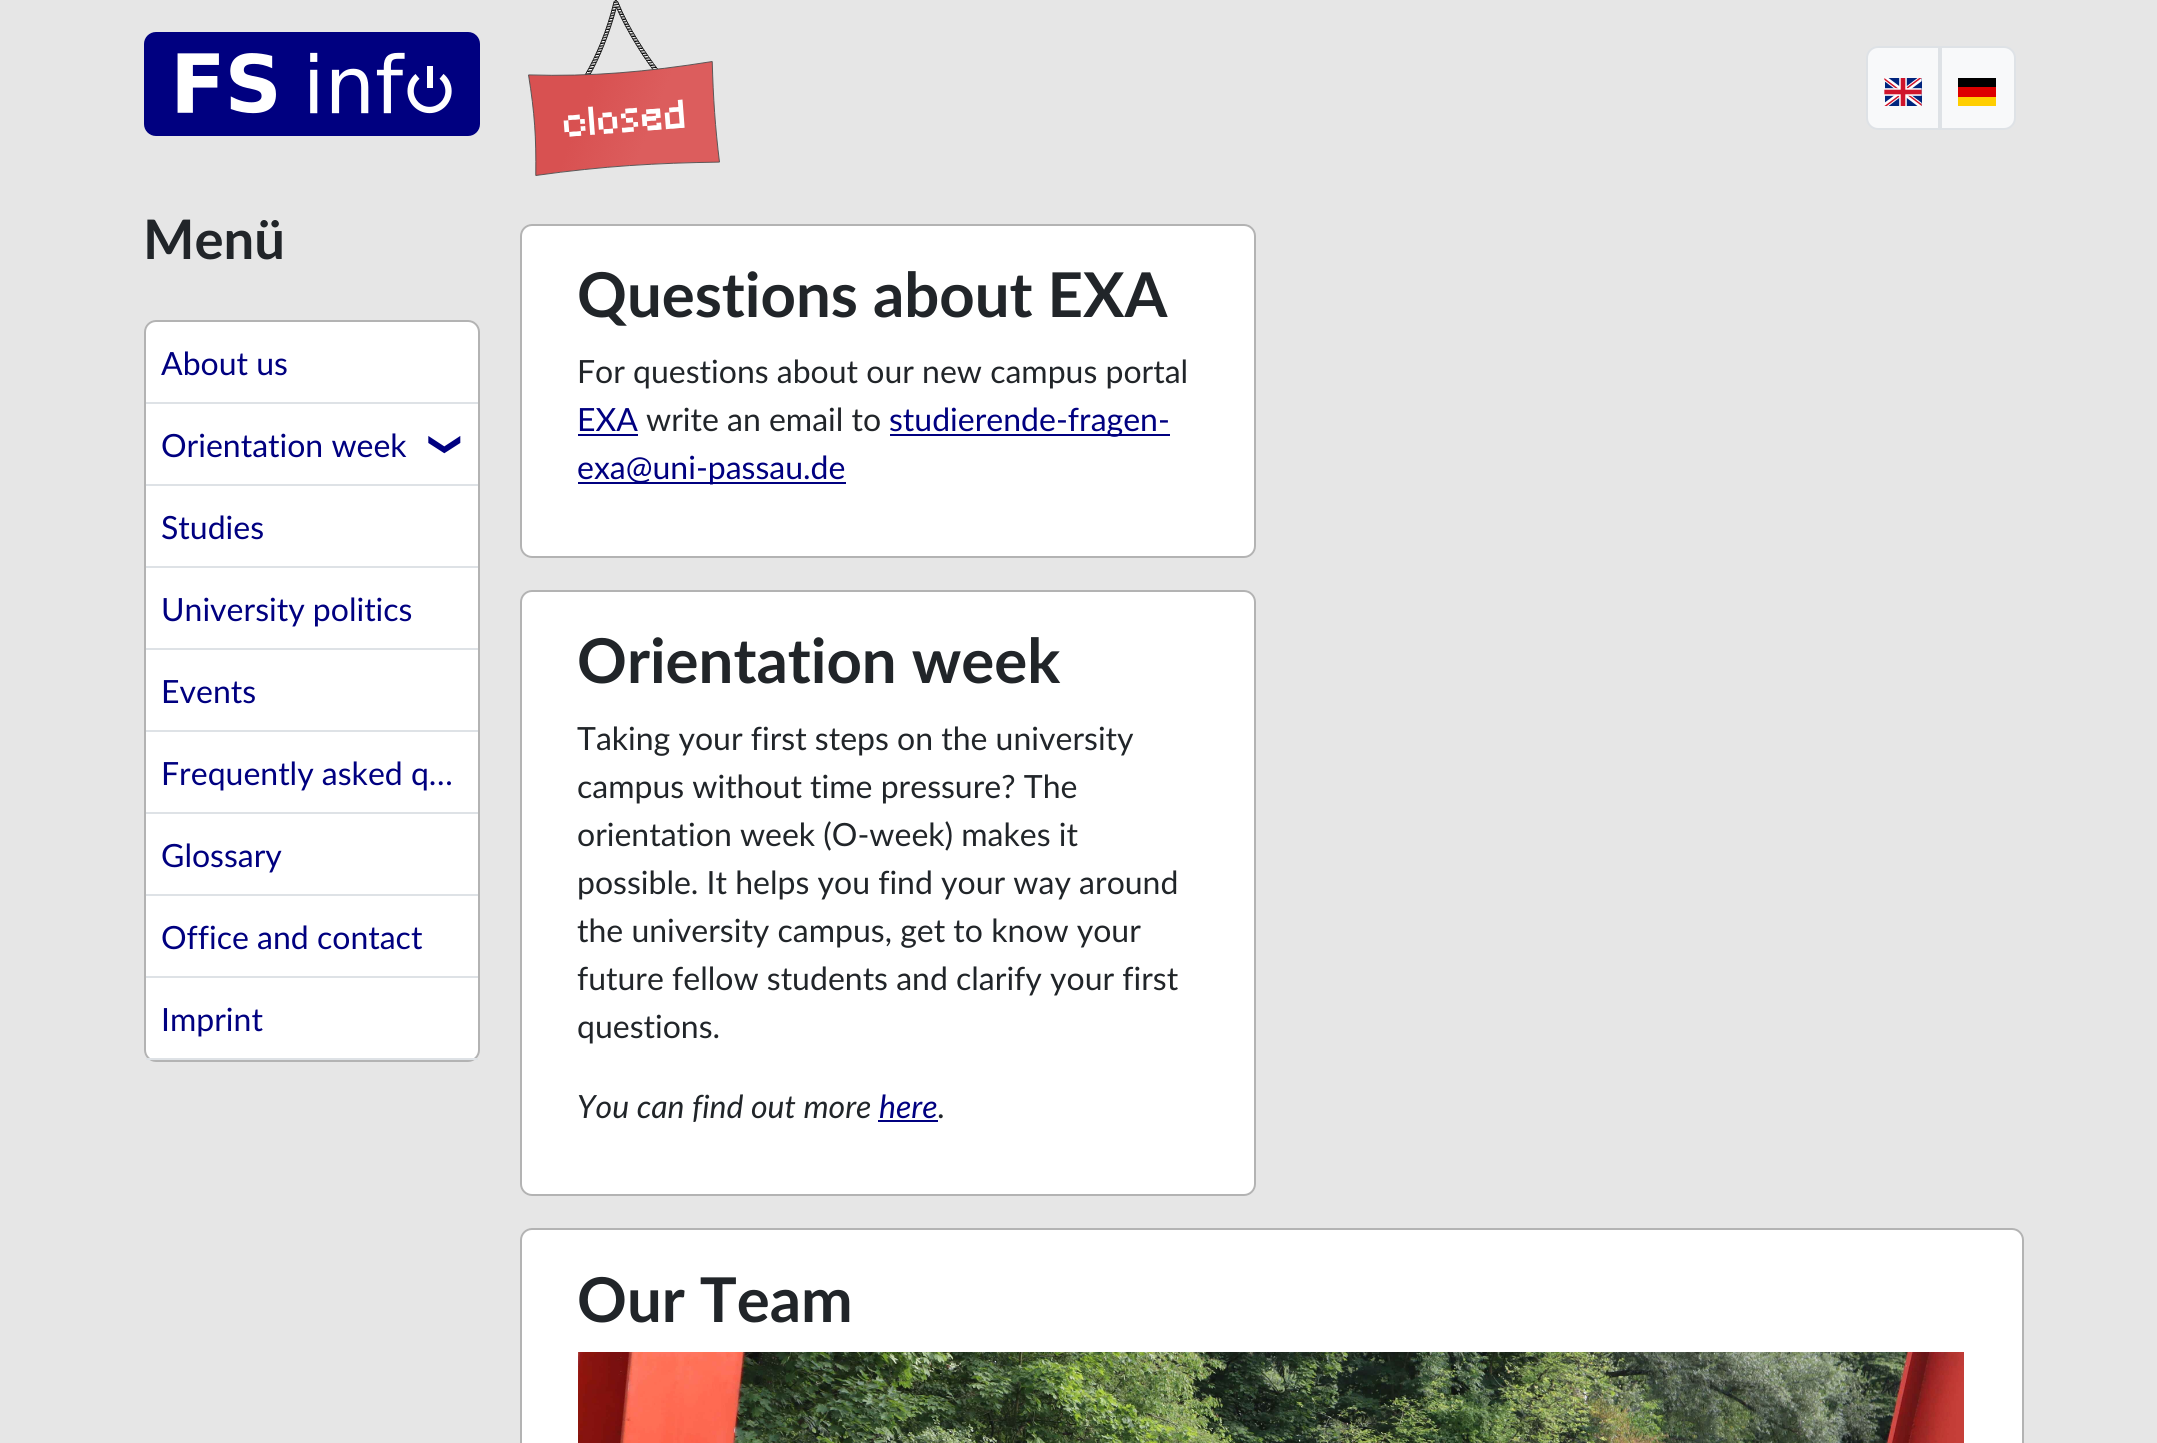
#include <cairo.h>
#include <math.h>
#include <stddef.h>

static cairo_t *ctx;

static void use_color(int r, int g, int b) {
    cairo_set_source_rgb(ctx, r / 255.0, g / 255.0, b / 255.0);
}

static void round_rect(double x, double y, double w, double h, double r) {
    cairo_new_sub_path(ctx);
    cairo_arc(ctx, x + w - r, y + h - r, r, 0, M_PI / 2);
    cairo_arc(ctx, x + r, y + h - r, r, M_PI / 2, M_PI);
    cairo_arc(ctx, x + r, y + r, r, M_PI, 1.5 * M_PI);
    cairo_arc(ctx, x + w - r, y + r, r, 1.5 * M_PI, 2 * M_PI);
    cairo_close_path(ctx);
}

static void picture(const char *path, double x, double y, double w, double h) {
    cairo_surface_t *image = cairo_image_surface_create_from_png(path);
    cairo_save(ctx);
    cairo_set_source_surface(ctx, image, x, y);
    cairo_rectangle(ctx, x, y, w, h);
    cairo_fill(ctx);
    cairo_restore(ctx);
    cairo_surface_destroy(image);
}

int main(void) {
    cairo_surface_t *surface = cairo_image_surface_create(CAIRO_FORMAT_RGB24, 2157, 1443);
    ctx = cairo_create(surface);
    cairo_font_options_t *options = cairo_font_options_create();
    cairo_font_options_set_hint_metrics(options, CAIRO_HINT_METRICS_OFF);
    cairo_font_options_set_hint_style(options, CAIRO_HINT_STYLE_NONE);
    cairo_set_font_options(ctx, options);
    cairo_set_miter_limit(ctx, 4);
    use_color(230, 230, 230);
    cairo_paint(ctx);
    picture("img1.png", 144, 32, 336, 104);
    picture("img2.png", 528, 0, 192, 176);
    use_color(248, 249, 250);
    cairo_new_path(ctx);
    cairo_move_to(ctx, 1878, 47);
    cairo_line_to(ctx, 1939, 47);
    cairo_line_to(ctx, 1939, 129);
    cairo_line_to(ctx, 1878, 129);
    cairo_curve_to(ctx, 1872, 129, 1867, 124, 1867, 118);
    cairo_line_to(ctx, 1867, 58);
    cairo_curve_to(ctx, 1867, 52, 1872, 47, 1878, 47);
    cairo_close_path(ctx);
    cairo_fill_preserve(ctx);
    use_color(222, 226, 230);
    cairo_stroke(ctx);
    picture("img3.png", 1884, 78, 38, 28);
    use_color(248, 249, 250);
    cairo_new_path(ctx);
    cairo_move_to(ctx, 1941, 47);
    cairo_line_to(ctx, 2004, 47);
    cairo_curve_to(ctx, 2010, 47, 2015, 52, 2015, 58);
    cairo_line_to(ctx, 2015, 118);
    cairo_curve_to(ctx, 2015, 124, 2010, 129, 2004, 129);
    cairo_line_to(ctx, 1941, 129);
    cairo_close_path(ctx);
    cairo_fill_preserve(ctx);
    use_color(222, 226, 230);
    cairo_stroke(ctx);
    use_color(0, 0, 0);
    cairo_rectangle(ctx, 1958, 78, 38, 9);
    cairo_fill(ctx);
    use_color(221, 0, 0);
    cairo_rectangle(ctx, 1958, 87, 38, 10);
    cairo_fill(ctx);
    use_color(255, 206, 0);
    cairo_rectangle(ctx, 1958, 97, 38, 9);
    cairo_fill(ctx);
    cairo_select_font_face(ctx, "Lato", CAIRO_FONT_SLANT_NORMAL, CAIRO_FONT_WEIGHT_BOLD);
    cairo_set_font_size(ctx, 54.5);
    use_color(33, 37, 41);
    cairo_move_to(ctx, 143, 259);
    cairo_show_text(ctx, "Menü");
    use_color(255, 255, 255);
    round_rect(144, 320, 336, 742, 12);
    cairo_fill(ctx);
    round_rect(145, 321, 334, 740, 11);
    cairo_set_source_rgba(ctx, 0, 0, 0, 0.3);
    cairo_stroke(ctx);
    use_color(222, 226, 230);
    cairo_rectangle(ctx, 146, 402, 332, 2);
    cairo_fill(ctx);
    cairo_select_font_face(ctx, "Lato", CAIRO_FONT_SLANT_NORMAL, CAIRO_FONT_WEIGHT_NORMAL);
    cairo_set_font_size(ctx, 32);
    use_color(0, 0, 128);
    cairo_move_to(ctx, 161, 375);
    cairo_show_text(ctx, "About us");
    use_color(222, 226, 230);
    cairo_rectangle(ctx, 146, 484, 332, 2);
    cairo_fill(ctx);
    use_color(0, 0, 128);
    cairo_move_to(ctx, 161, 457);
    cairo_show_text(ctx, "Orientation week");
    cairo_select_font_face(ctx, "DejaVu Sans", CAIRO_FONT_SLANT_NORMAL, CAIRO_FONT_WEIGHT_NORMAL);
    cairo_save(ctx);
    cairo_translate(ctx, 436, 431);
    cairo_rotate(ctx, 90 * M_PI / 180);
    cairo_move_to(ctx, 0, 0);
    cairo_show_text(ctx, "❯");
    cairo_restore(ctx);
    use_color(222, 226, 230);
    cairo_rectangle(ctx, 146, 566, 332, 2);
    cairo_fill(ctx);
    cairo_select_font_face(ctx, "Lato", CAIRO_FONT_SLANT_NORMAL, CAIRO_FONT_WEIGHT_NORMAL);
    use_color(0, 0, 128);
    cairo_move_to(ctx, 161, 539);
    cairo_show_text(ctx, "Studies");
    use_color(222, 226, 230);
    cairo_rectangle(ctx, 146, 648, 332, 2);
    cairo_fill(ctx);
    use_color(0, 0, 128);
    cairo_move_to(ctx, 161, 621);
    cairo_show_text(ctx, "University politics");
    use_color(222, 226, 230);
    cairo_rectangle(ctx, 146, 730, 332, 2);
    cairo_fill(ctx);
    use_color(0, 0, 128);
    cairo_move_to(ctx, 161, 703);
    cairo_show_text(ctx, "Events");
    use_color(222, 226, 230);
    cairo_rectangle(ctx, 146, 812, 332, 2);
    cairo_fill(ctx);
    use_color(0, 0, 128);
    cairo_move_to(ctx, 161, 785);
    cairo_show_text(ctx, "Frequently asked q…");
    use_color(222, 226, 230);
    cairo_rectangle(ctx, 146, 894, 332, 2);
    cairo_fill(ctx);
    use_color(0, 0, 128);
    cairo_move_to(ctx, 161, 867);
    cairo_show_text(ctx, "Glossary");
    use_color(222, 226, 230);
    cairo_rectangle(ctx, 146, 976, 332, 2);
    cairo_fill(ctx);
    use_color(0, 0, 128);
    cairo_move_to(ctx, 161, 949);
    cairo_show_text(ctx, "Office and contact");
    use_color(222, 226, 230);
    cairo_rectangle(ctx, 146, 1058, 332, 2);
    cairo_fill(ctx);
    use_color(0, 0, 128);
    cairo_move_to(ctx, 161, 1031);
    cairo_show_text(ctx, "Imprint");
    use_color(255, 255, 255);
    round_rect(520, 224, 736, 334, 12);
    cairo_fill(ctx);
    round_rect(521, 225, 734, 332, 11);
    cairo_set_source_rgba(ctx, 0, 0, 0, 0.3);
    cairo_stroke(ctx);
    cairo_select_font_face(ctx, "Lato", CAIRO_FONT_SLANT_NORMAL, CAIRO_FONT_WEIGHT_BOLD);
    cairo_set_font_size(ctx, 61.75);
    use_color(33, 37, 41);
    cairo_move_to(ctx, 577, 317);
    cairo_show_text(ctx, "Questions about EXA");
    cairo_select_font_face(ctx, "Lato", CAIRO_FONT_SLANT_NORMAL, CAIRO_FONT_WEIGHT_NORMAL);
    cairo_set_font_size(ctx, 32);
    cairo_move_to(ctx, 577, 383);
    cairo_show_text(ctx, "For questions about our new campus portal");
    use_color(0, 0, 128);
    cairo_move_to(ctx, 577, 431);
    cairo_show_text(ctx, "EXA");
    cairo_rectangle(ctx, 578, 434, 60, 2);
    cairo_fill(ctx);
    use_color(33, 37, 41);
    cairo_move_to(ctx, 646, 431);
    cairo_show_text(ctx, "write an email to");
    use_color(0, 0, 128);
    cairo_rectangle(ctx, 890, 434, 280, 2);
    cairo_fill(ctx);
    cairo_move_to(ctx, 889, 431);
    cairo_show_text(ctx, "studierende-fragen-");
    cairo_rectangle(ctx, 578, 482, 268, 2);
    cairo_fill(ctx);
    cairo_move_to(ctx, 577, 479);
    cairo_show_text(ctx, "exa@uni-passau.de");
    use_color(255, 255, 255);
    round_rect(520, 590, 736, 606, 12);
    cairo_fill(ctx);
    round_rect(521, 591, 734, 604, 11);
    cairo_set_source_rgba(ctx, 0, 0, 0, 0.3);
    cairo_stroke(ctx);
    cairo_select_font_face(ctx, "Lato", CAIRO_FONT_SLANT_NORMAL, CAIRO_FONT_WEIGHT_BOLD);
    cairo_set_font_size(ctx, 61.75);
    use_color(33, 37, 41);
    cairo_move_to(ctx, 577, 683);
    cairo_show_text(ctx, "Orientation week");
    cairo_select_font_face(ctx, "Lato", CAIRO_FONT_SLANT_NORMAL, CAIRO_FONT_WEIGHT_NORMAL);
    cairo_set_font_size(ctx, 32);
    cairo_move_to(ctx, 577, 750);
    cairo_show_text(ctx, "Taking your first steps on the university");
    cairo_move_to(ctx, 577, 798);
    cairo_show_text(ctx, "campus without time pressure? The");
    cairo_move_to(ctx, 577, 846);
    cairo_show_text(ctx, "orientation week (O-week) makes it");
    cairo_move_to(ctx, 577, 894);
    cairo_show_text(ctx, "possible. It helps you find your way around");
    cairo_move_to(ctx, 577, 942);
    cairo_show_text(ctx, "the university campus, get to know your");
    cairo_move_to(ctx, 577, 990);
    cairo_show_text(ctx, "future fellow students and clarify your first");
    cairo_move_to(ctx, 577, 1038);
    cairo_show_text(ctx, "questions.");
    cairo_select_font_face(ctx, "Lato", CAIRO_FONT_SLANT_ITALIC, CAIRO_FONT_WEIGHT_NORMAL);
    cairo_move_to(ctx, 577, 1118);
    cairo_show_text(ctx, "You can find out more");
    use_color(0, 0, 128);
    cairo_move_to(ctx, 879, 1118);
    cairo_show_text(ctx, "here");
    cairo_rectangle(ctx, 878, 1120, 60, 2);
    cairo_fill(ctx);
    cairo_select_font_face(ctx, "Lato", CAIRO_FONT_SLANT_NORMAL, CAIRO_FONT_WEIGHT_NORMAL);
    use_color(33, 37, 41);
    cairo_move_to(ctx, 937, 1118);
    cairo_show_text(ctx, ".");
    use_color(255, 255, 255);
    round_rect(520, 1228, 1504, 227, 12);
    cairo_fill(ctx);
    round_rect(521, 1229, 1502, 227, 11);
    cairo_set_source_rgba(ctx, 0, 0, 0, 0.3);
    cairo_stroke(ctx);
    cairo_select_font_face(ctx, "Lato", CAIRO_FONT_SLANT_NORMAL, CAIRO_FONT_WEIGHT_BOLD);
    cairo_set_font_size(ctx, 61.75);
    use_color(33, 37, 41);
    cairo_move_to(ctx, 577, 1322);
    cairo_show_text(ctx, "Our Team");
    picture("img4.png", 578, 1352, 1386, 91);
    cairo_surface_write_to_png(surface, "result.png");
    cairo_font_options_destroy(options);
    cairo_destroy(ctx);
    cairo_surface_destroy(surface);
    return 0;
}
